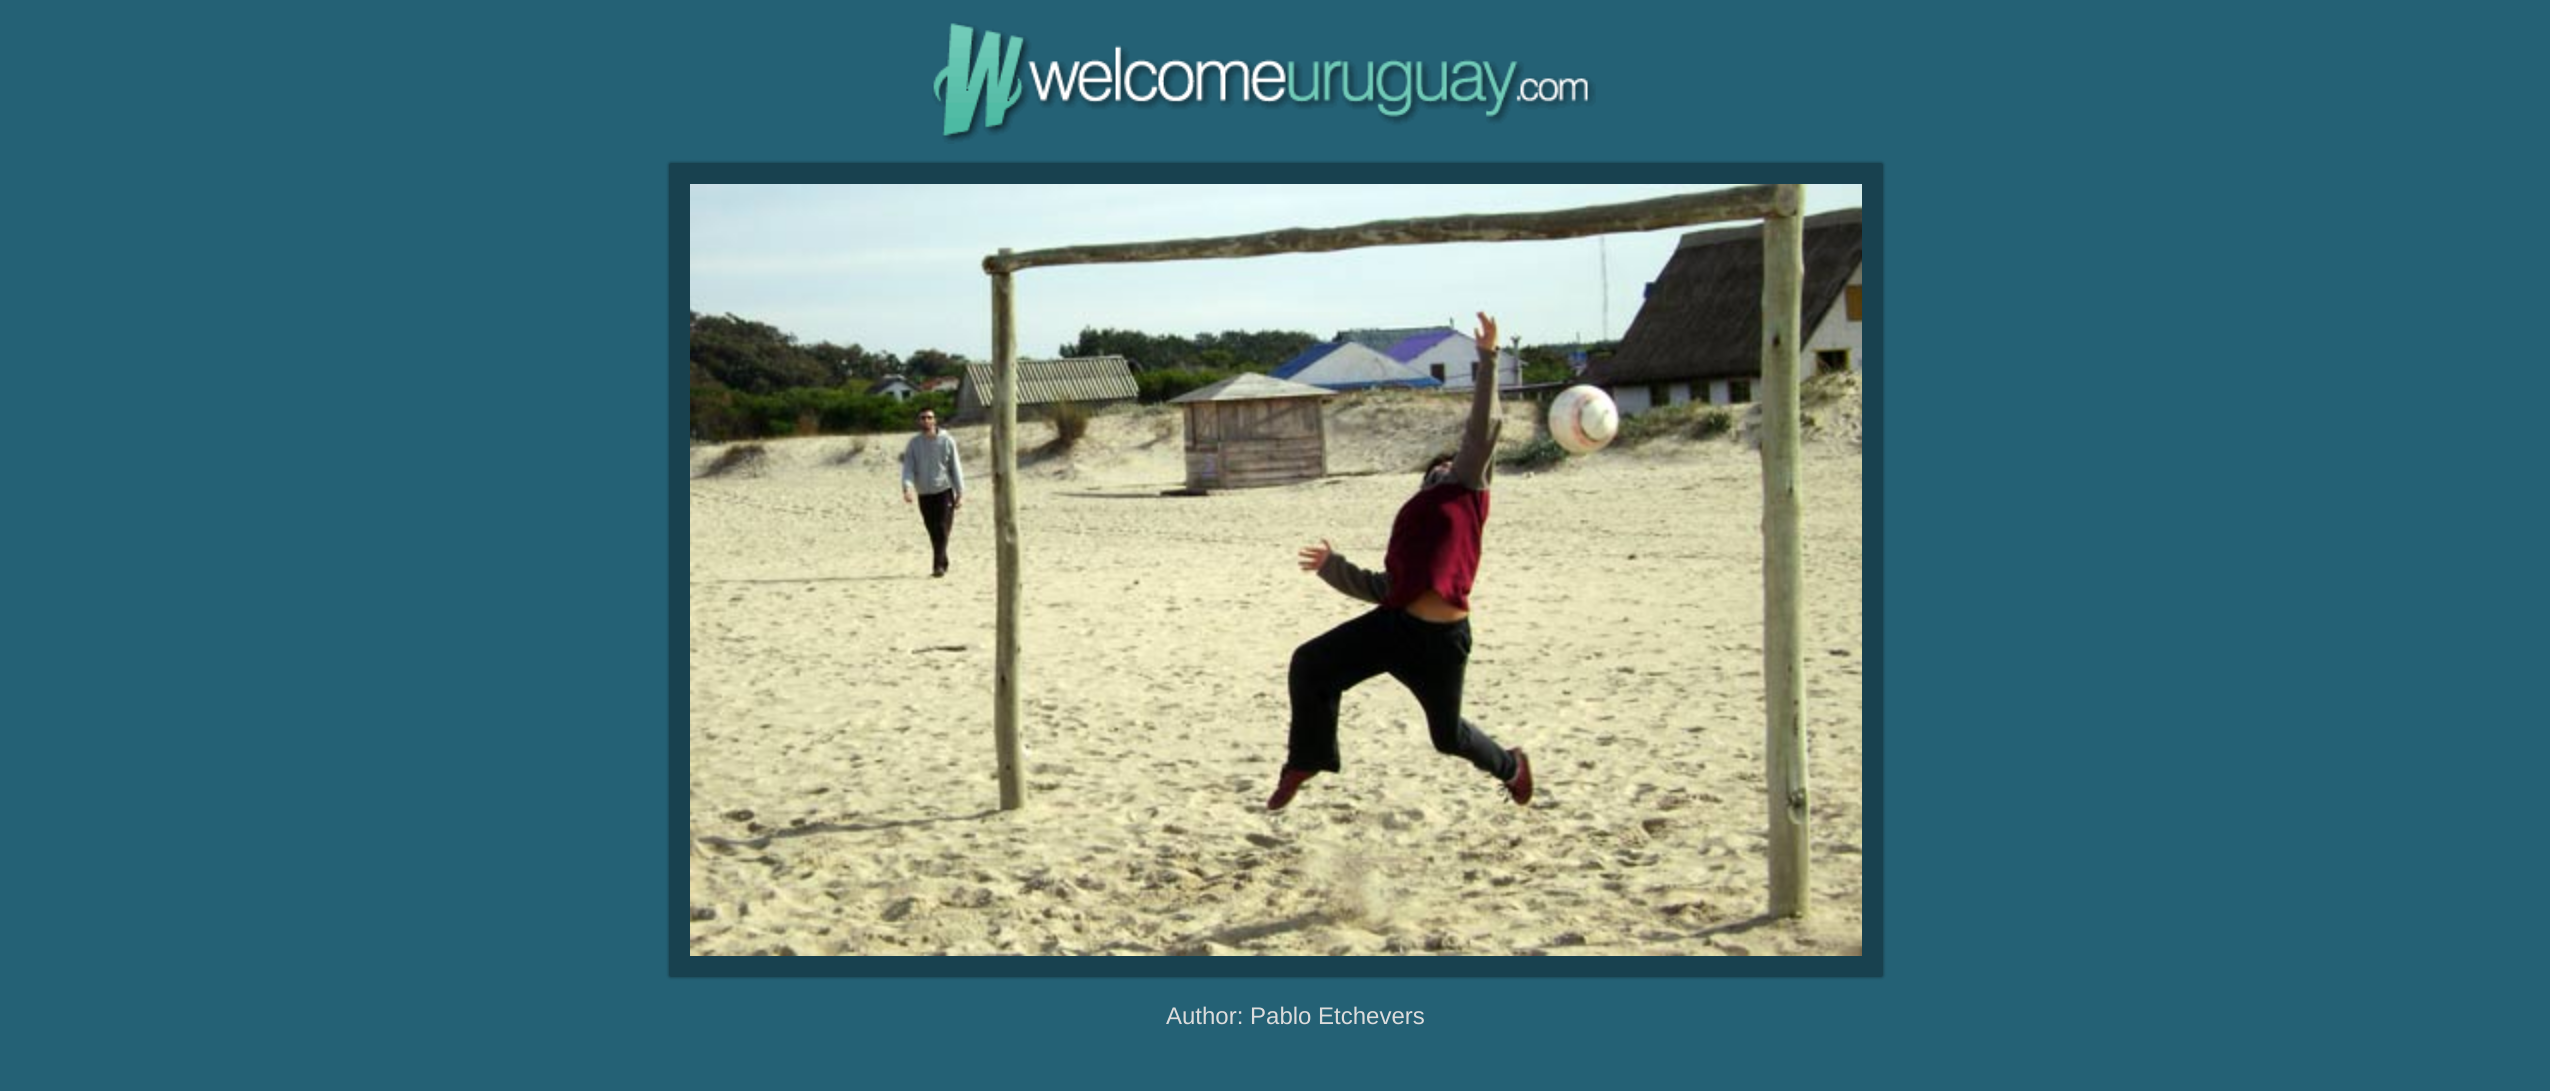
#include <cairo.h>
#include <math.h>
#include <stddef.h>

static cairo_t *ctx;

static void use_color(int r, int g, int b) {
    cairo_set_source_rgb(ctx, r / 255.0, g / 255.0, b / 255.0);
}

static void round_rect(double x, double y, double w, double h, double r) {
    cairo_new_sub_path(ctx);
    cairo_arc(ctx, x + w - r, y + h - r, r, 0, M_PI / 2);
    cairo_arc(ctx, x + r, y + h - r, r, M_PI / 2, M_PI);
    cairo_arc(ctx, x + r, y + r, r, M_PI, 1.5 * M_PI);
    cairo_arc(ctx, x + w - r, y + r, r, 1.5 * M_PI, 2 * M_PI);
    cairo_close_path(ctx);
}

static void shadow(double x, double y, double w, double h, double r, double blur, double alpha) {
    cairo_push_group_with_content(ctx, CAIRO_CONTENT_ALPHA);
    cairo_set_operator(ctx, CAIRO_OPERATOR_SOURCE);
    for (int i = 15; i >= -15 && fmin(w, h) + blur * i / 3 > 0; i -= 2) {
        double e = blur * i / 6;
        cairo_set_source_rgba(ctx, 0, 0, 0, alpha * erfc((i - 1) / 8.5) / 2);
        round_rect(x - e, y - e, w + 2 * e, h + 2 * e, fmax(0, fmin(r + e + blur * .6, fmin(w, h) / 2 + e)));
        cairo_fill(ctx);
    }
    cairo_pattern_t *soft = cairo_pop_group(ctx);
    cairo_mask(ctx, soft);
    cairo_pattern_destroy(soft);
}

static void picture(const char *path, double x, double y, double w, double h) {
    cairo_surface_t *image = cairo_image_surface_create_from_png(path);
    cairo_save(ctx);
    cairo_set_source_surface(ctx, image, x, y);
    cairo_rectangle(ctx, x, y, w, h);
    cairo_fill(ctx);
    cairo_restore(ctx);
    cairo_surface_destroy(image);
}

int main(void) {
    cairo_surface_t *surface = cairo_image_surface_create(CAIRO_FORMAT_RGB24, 2550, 1091);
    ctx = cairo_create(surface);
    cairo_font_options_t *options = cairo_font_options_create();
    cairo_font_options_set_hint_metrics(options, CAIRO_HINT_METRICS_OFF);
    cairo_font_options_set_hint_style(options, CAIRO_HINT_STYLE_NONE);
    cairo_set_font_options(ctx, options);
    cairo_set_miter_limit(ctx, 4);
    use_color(36, 97, 117);
    cairo_paint(ctx);
    picture("img1.png", 932, 22, 664, 122);
    use_color(0, 0, 0);
    shadow(670, 164, 1212, 812, 0, 2, 0.8);
    cairo_rectangle(ctx, 680, 174, 1192, 792);
    use_color(24, 65, 79);
    cairo_set_line_width(ctx, 20);
    cairo_stroke(ctx);
    picture("img2.png", 690, 184, 1172, 772);
    cairo_select_font_face(ctx, "Liberation Sans", CAIRO_FONT_SLANT_NORMAL, CAIRO_FONT_WEIGHT_NORMAL);
    cairo_set_font_size(ctx, 24);
    use_color(220, 220, 220);
    cairo_move_to(ctx, 1166, 1024);
    cairo_show_text(ctx, "Author: Pablo Etchevers");
    cairo_surface_write_to_png(surface, "result.png");
    cairo_font_options_destroy(options);
    cairo_destroy(ctx);
    cairo_surface_destroy(surface);
    return 0;
}
